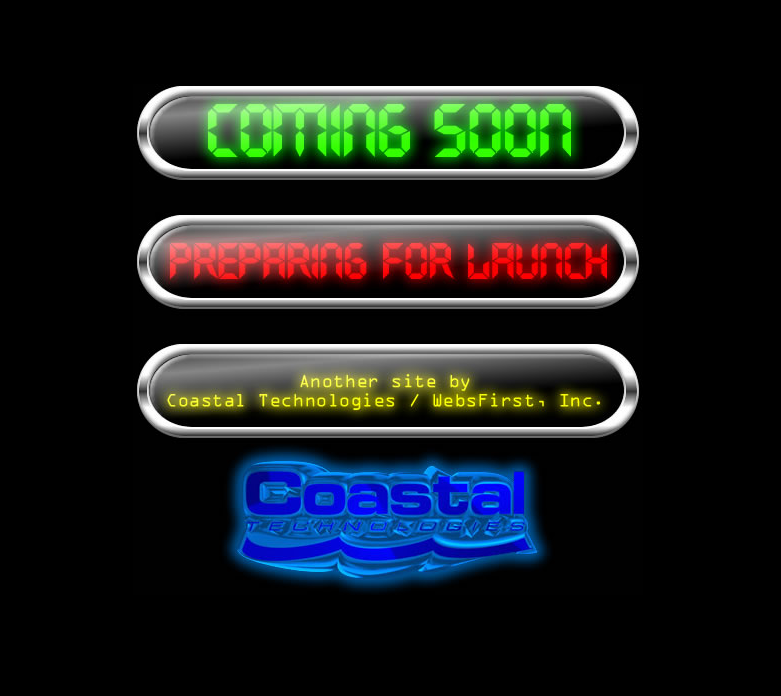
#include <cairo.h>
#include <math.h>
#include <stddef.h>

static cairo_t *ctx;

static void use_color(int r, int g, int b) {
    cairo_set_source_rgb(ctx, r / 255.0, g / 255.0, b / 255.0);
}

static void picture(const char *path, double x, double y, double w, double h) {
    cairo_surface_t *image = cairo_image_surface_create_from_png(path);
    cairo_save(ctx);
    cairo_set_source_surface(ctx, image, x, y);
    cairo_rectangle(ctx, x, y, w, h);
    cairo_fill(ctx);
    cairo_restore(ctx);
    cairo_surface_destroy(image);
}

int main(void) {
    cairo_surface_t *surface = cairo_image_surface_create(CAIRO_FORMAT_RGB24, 781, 696);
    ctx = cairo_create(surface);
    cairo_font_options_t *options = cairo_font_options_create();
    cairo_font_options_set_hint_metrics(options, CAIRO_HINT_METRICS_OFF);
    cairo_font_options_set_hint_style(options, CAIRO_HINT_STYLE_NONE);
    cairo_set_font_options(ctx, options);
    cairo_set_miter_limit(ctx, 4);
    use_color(0, 0, 0);
    cairo_paint(ctx);
    picture("img1.png", 133, 84, 510, 511);
    cairo_surface_write_to_png(surface, "result.png");
    cairo_font_options_destroy(options);
    cairo_destroy(ctx);
    cairo_surface_destroy(surface);
    return 0;
}
